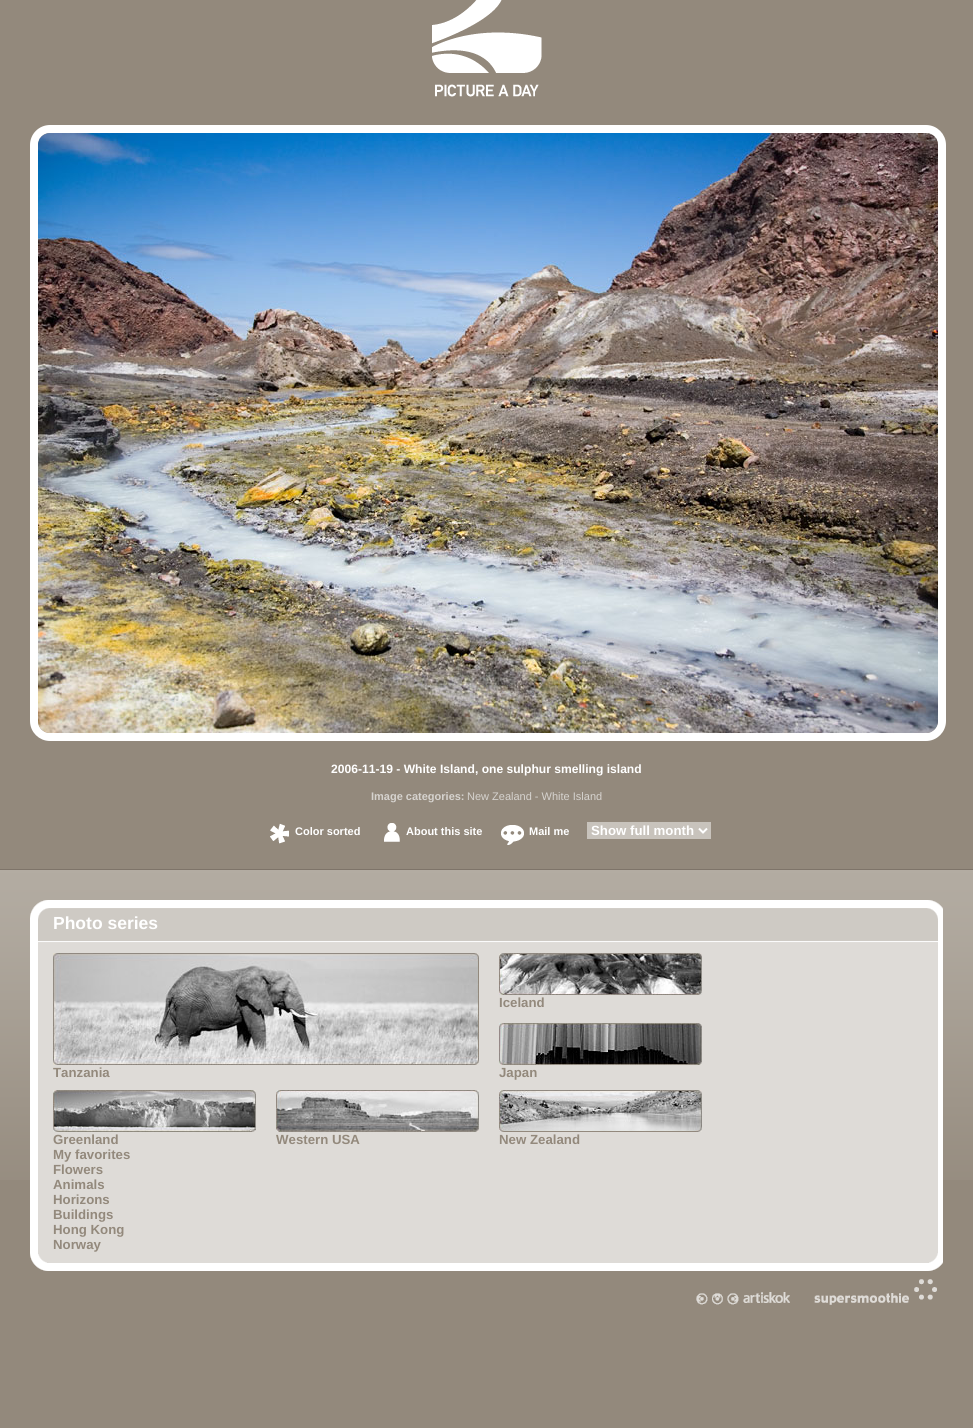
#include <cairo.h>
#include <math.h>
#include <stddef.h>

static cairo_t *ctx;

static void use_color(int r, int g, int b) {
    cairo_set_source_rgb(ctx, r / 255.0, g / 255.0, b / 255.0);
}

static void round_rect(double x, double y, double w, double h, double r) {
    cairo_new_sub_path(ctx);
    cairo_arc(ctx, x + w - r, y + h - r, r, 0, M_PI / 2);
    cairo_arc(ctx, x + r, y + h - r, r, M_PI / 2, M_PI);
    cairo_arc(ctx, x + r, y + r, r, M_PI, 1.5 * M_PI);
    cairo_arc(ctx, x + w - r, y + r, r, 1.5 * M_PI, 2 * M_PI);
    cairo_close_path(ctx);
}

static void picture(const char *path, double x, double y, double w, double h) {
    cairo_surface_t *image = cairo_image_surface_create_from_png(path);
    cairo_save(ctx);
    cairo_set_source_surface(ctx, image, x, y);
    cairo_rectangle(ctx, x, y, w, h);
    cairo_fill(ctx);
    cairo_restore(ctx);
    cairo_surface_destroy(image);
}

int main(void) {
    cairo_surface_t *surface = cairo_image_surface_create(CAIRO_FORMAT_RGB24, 973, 1428);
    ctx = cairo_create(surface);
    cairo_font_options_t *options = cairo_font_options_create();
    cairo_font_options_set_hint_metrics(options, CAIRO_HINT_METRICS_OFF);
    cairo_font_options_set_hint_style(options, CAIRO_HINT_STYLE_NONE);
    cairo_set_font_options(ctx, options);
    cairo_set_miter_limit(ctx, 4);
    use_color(147, 137, 124);
    cairo_paint(ctx);
    picture("img1.png", 432, 0, 110, 97);
    round_rect(34, 129, 908, 608, 16);
    use_color(255, 255, 255);
    cairo_set_line_width(ctx, 8);
    cairo_stroke(ctx);
    picture("img2.png", 38, 133, 900, 600);
    cairo_select_font_face(ctx, "Liberation Sans", CAIRO_FONT_SLANT_NORMAL, CAIRO_FONT_WEIGHT_BOLD);
    cairo_set_font_size(ctx, 12.1);
    cairo_move_to(ctx, 331, 773);
    cairo_show_text(ctx, "2006-11-19 - White Island, one sulphur smelling island");
    cairo_set_font_size(ctx, 11);
    use_color(214, 211, 207);
    cairo_move_to(ctx, 371, 800);
    cairo_show_text(ctx, "Image categories:");
    cairo_select_font_face(ctx, "Liberation Sans", CAIRO_FONT_SLANT_NORMAL, CAIRO_FONT_WEIGHT_NORMAL);
    cairo_move_to(ctx, 467, 800);
    cairo_show_text(ctx, "New Zealand - White Island");
    picture("img3.png", 279, 823, 2, 1);
    picture("img4.png", 384, 823, 16, 19);
    picture("img5.png", 270, 824, 19, 20);
    cairo_select_font_face(ctx, "Liberation Sans", CAIRO_FONT_SLANT_NORMAL, CAIRO_FONT_WEIGHT_BOLD);
    use_color(255, 255, 255);
    cairo_move_to(ctx, 295, 835);
    cairo_show_text(ctx, "Color sorted");
    cairo_move_to(ctx, 406, 835);
    cairo_show_text(ctx, "About this site");
    picture("img6.png", 501, 825, 23, 20);
    cairo_move_to(ctx, 529, 835);
    cairo_show_text(ctx, "Mail me");
    use_color(200, 195, 188);
    cairo_rectangle(ctx, 587, 822, 124, 17);
    cairo_fill(ctx);
    cairo_new_path(ctx);
    cairo_move_to(ctx, 699, 828.5);
    cairo_line_to(ctx, 703, 832.5);
    cairo_line_to(ctx, 707, 828.5);
    use_color(255, 255, 255);
    cairo_set_line_width(ctx, 2);
    cairo_stroke(ctx);
    cairo_set_font_size(ctx, 13.25);
    cairo_move_to(ctx, 591, 835);
    cairo_show_text(ctx, "Show full month");
    picture("img7.png", 0, 870, 973, 310);
    use_color(126, 116, 105);
    cairo_rectangle(ctx, 0, 869, 973, 1);
    cairo_fill(ctx);
    picture("img8.png", 30, 900, 913, 352);
    cairo_set_font_size(ctx, 17.5);
    use_color(255, 255, 255);
    cairo_move_to(ctx, 53, 929);
    cairo_show_text(ctx, "Photo series");
    picture("img9.png", 53, 953, 426, 112);
    cairo_set_font_size(ctx, 13.25);
    use_color(147, 137, 124);
    cairo_move_to(ctx, 53, 1077);
    cairo_show_text(ctx, "Tanzania");
    picture("img10.png", 499, 953, 203, 42);
    cairo_move_to(ctx, 499, 1007);
    cairo_show_text(ctx, "Iceland");
    picture("img11.png", 499, 1023, 203, 42);
    cairo_move_to(ctx, 499, 1077);
    cairo_show_text(ctx, "Japan");
    picture("img12.png", 53, 1090, 203, 42);
    cairo_move_to(ctx, 53, 1144);
    cairo_show_text(ctx, "Greenland");
    picture("img13.png", 276, 1090, 203, 42);
    cairo_move_to(ctx, 276, 1144);
    cairo_show_text(ctx, "Western USA");
    picture("img14.png", 499, 1090, 203, 42);
    cairo_move_to(ctx, 499, 1144);
    cairo_show_text(ctx, "New Zealand");
    cairo_move_to(ctx, 53, 1159);
    cairo_show_text(ctx, "My favorites");
    cairo_move_to(ctx, 53, 1174);
    cairo_show_text(ctx, "Flowers");
    cairo_move_to(ctx, 53, 1189);
    cairo_show_text(ctx, "Animals");
    cairo_move_to(ctx, 53, 1204);
    cairo_show_text(ctx, "Horizons");
    cairo_move_to(ctx, 53, 1219);
    cairo_show_text(ctx, "Buildings");
    cairo_move_to(ctx, 53, 1234);
    cairo_show_text(ctx, "Hong Kong");
    cairo_move_to(ctx, 53, 1249);
    cairo_show_text(ctx, "Norway");
    picture("img15.png", 30, 1252, 913, 19);
    picture("img16.png", 696, 1292, 94, 13);
    picture("img17.png", 814, 1279, 123, 26);
    cairo_surface_write_to_png(surface, "result.png");
    cairo_font_options_destroy(options);
    cairo_destroy(ctx);
    cairo_surface_destroy(surface);
    return 0;
}
